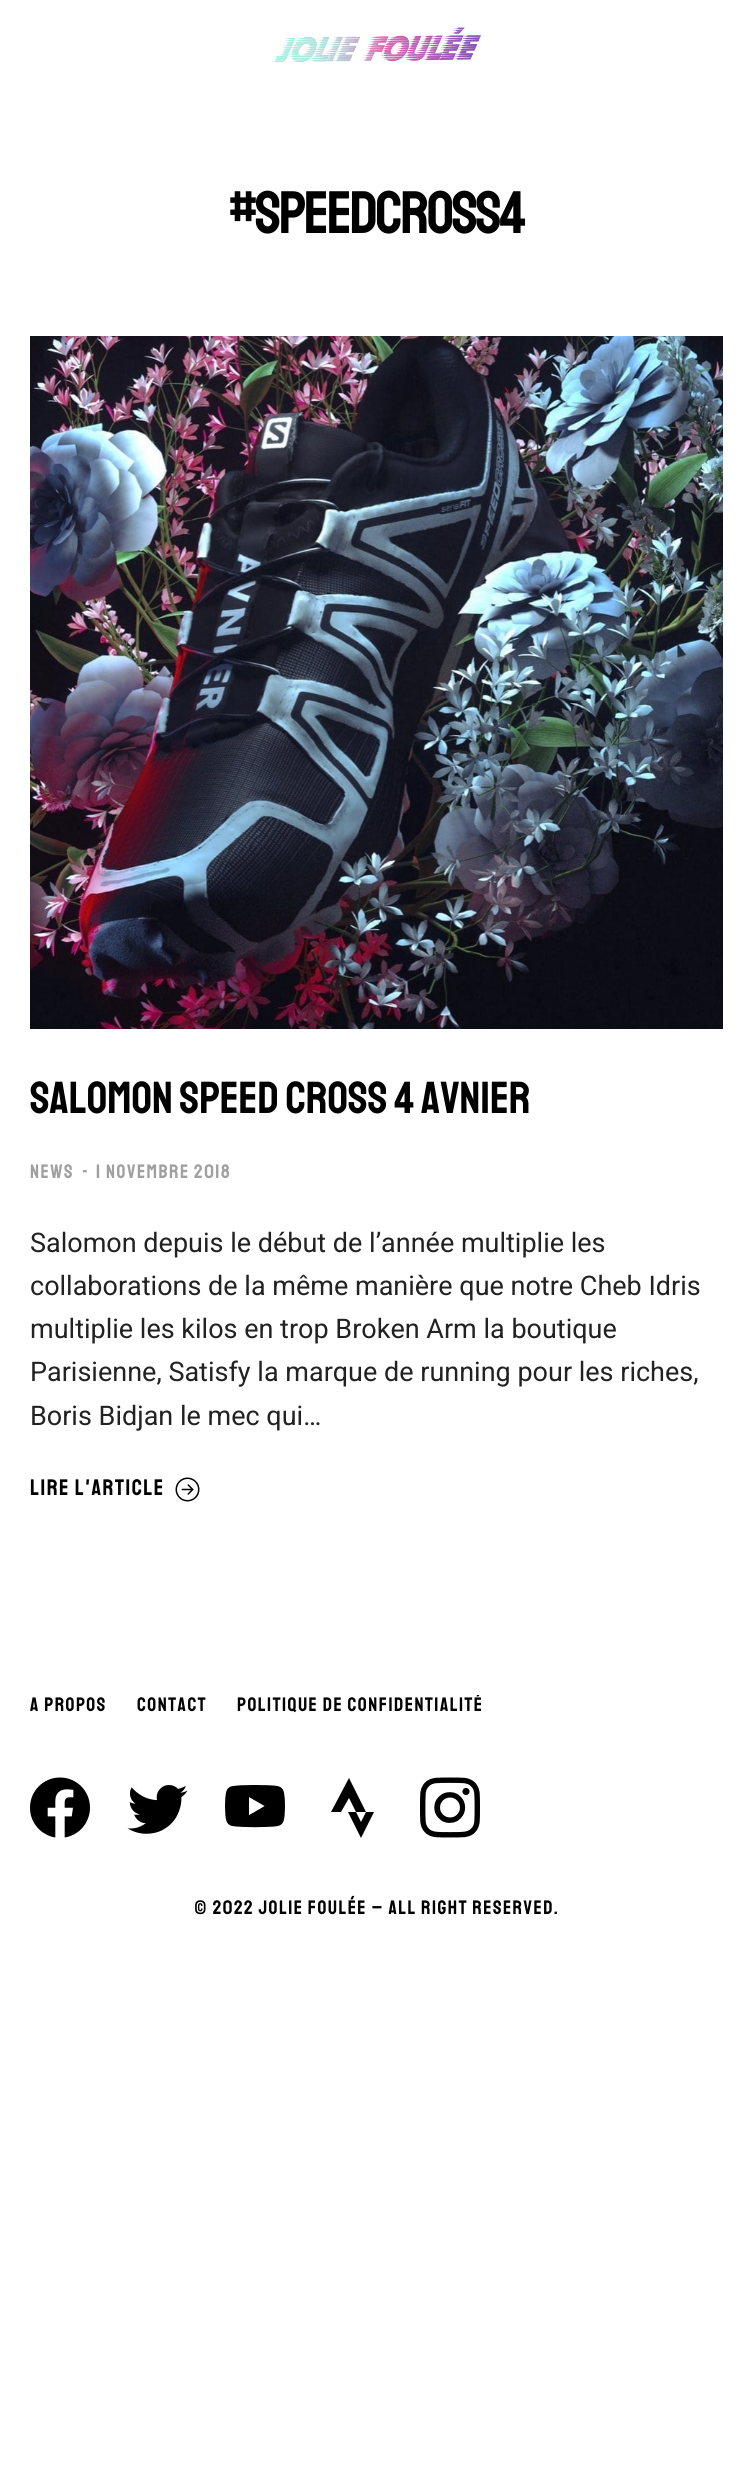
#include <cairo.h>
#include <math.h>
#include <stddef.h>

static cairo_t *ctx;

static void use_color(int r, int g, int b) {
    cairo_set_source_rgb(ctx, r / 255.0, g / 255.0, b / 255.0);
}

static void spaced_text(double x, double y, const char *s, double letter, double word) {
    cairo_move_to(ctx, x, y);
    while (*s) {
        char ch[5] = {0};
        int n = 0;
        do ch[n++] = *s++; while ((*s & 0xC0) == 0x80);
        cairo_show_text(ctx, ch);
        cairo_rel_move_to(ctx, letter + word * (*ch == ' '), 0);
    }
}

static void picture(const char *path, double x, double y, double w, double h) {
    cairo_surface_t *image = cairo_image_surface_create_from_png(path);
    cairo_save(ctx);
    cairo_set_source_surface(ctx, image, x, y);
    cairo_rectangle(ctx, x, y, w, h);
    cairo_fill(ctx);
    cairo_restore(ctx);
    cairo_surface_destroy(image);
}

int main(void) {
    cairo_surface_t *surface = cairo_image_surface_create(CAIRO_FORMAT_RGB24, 752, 2483);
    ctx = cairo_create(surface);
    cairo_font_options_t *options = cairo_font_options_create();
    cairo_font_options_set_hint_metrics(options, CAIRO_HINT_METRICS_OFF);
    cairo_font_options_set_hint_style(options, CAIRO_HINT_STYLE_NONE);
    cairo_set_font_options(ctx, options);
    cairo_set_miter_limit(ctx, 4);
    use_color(255, 255, 255);
    cairo_paint(ctx);
    picture("img1.png", 271, 27, 210, 36);
    cairo_select_font_face(ctx, "Staatliches", CAIRO_FONT_SLANT_NORMAL, CAIRO_FONT_WEIGHT_NORMAL);
    cairo_set_font_size(ctx, 60);
    use_color(0, 0, 0);
    spaced_text(229, 233, "#SPEEDCROSS4", -2.4, 0);
    picture("img2.png", 30, 336, 693, 693);
    cairo_set_font_size(ctx, 45);
    cairo_move_to(ctx, 30, 1113);
    cairo_show_text(ctx, "SALOMON SPEED CROSS 4 AVNIER");
    cairo_set_font_size(ctx, 19.5);
    use_color(160, 160, 160);
    spaced_text(30, 1178, "NEWS", 1.5, 0);
    spaced_text(82, 1178, "-", 1.5, 0);
    spaced_text(96, 1178, "1 NOVEMBRE 2018", 1.5, 0);
    cairo_select_font_face(ctx, "Roboto", CAIRO_FONT_SLANT_NORMAL, CAIRO_FONT_WEIGHT_NORMAL);
    cairo_set_font_size(ctx, 27);
    use_color(34, 34, 34);
    cairo_move_to(ctx, 30, 1252);
    cairo_show_text(ctx, "Salomon depuis le début de l’année multiplie les");
    cairo_move_to(ctx, 30, 1295);
    cairo_show_text(ctx, "collaborations de la même manière que notre Cheb Idris");
    cairo_move_to(ctx, 30, 1338);
    cairo_show_text(ctx, "multiplie les kilos en trop Broken Arm la boutique");
    cairo_move_to(ctx, 30, 1381);
    cairo_show_text(ctx, "Parisienne, Satisfy la marque de running pour les riches,");
    cairo_move_to(ctx, 30, 1425);
    cairo_show_text(ctx, "Boris Bidjan le mec qui…");
    cairo_select_font_face(ctx, "Staatliches", CAIRO_FONT_SLANT_NORMAL, CAIRO_FONT_WEIGHT_NORMAL);
    cairo_set_font_size(ctx, 22.5);
    use_color(0, 0, 0);
    spaced_text(30, 1495, "LIRE L'ARTICLE", 1.5, 0);
    picture("img3.png", 175, 1477, 25, 25);
    cairo_set_font_size(ctx, 19.5);
    spaced_text(30, 1711, "A PROPOS", 1.5, 0);
    spaced_text(137, 1711, "CONTACT", 1.5, 0);
    cairo_save(ctx);
    cairo_rectangle(ctx, 237, 1695, 246, 23);
    cairo_clip(ctx);
    spaced_text(237, 1711, "POLITIQUE DE CONFIDENTIALITÉ", 1.5, 0);
    cairo_restore(ctx);
    picture("img4.png", 30, 1777, 60, 61);
    picture("img5.png", 127, 1785, 61, 49);
    picture("img6.png", 225, 1785, 60, 43);
    cairo_new_path(ctx);
    cairo_move_to(ctx, 349, 1778);
    cairo_line_to(ctx, 366, 1812);
    cairo_line_to(ctx, 356, 1812);
    cairo_line_to(ctx, 349, 1798);
    cairo_line_to(ctx, 341, 1812);
    cairo_line_to(ctx, 331, 1812);
    cairo_close_path(ctx);
    cairo_move_to(ctx, 366, 1812);
    cairo_line_to(ctx, 374, 1812);
    cairo_line_to(ctx, 361, 1838);
    cairo_line_to(ctx, 348, 1812);
    cairo_line_to(ctx, 356, 1812);
    cairo_line_to(ctx, 361, 1822);
    cairo_close_path(ctx);
    cairo_fill(ctx);
    picture("img7.png", 420, 1777, 60, 61);
    spaced_text(194, 1914, "© 2022 JOLIE FOULÉE – ALL RIGHT RESERVED.", 1.5, 0);
    cairo_surface_write_to_png(surface, "result.png");
    cairo_font_options_destroy(options);
    cairo_destroy(ctx);
    cairo_surface_destroy(surface);
    return 0;
}
